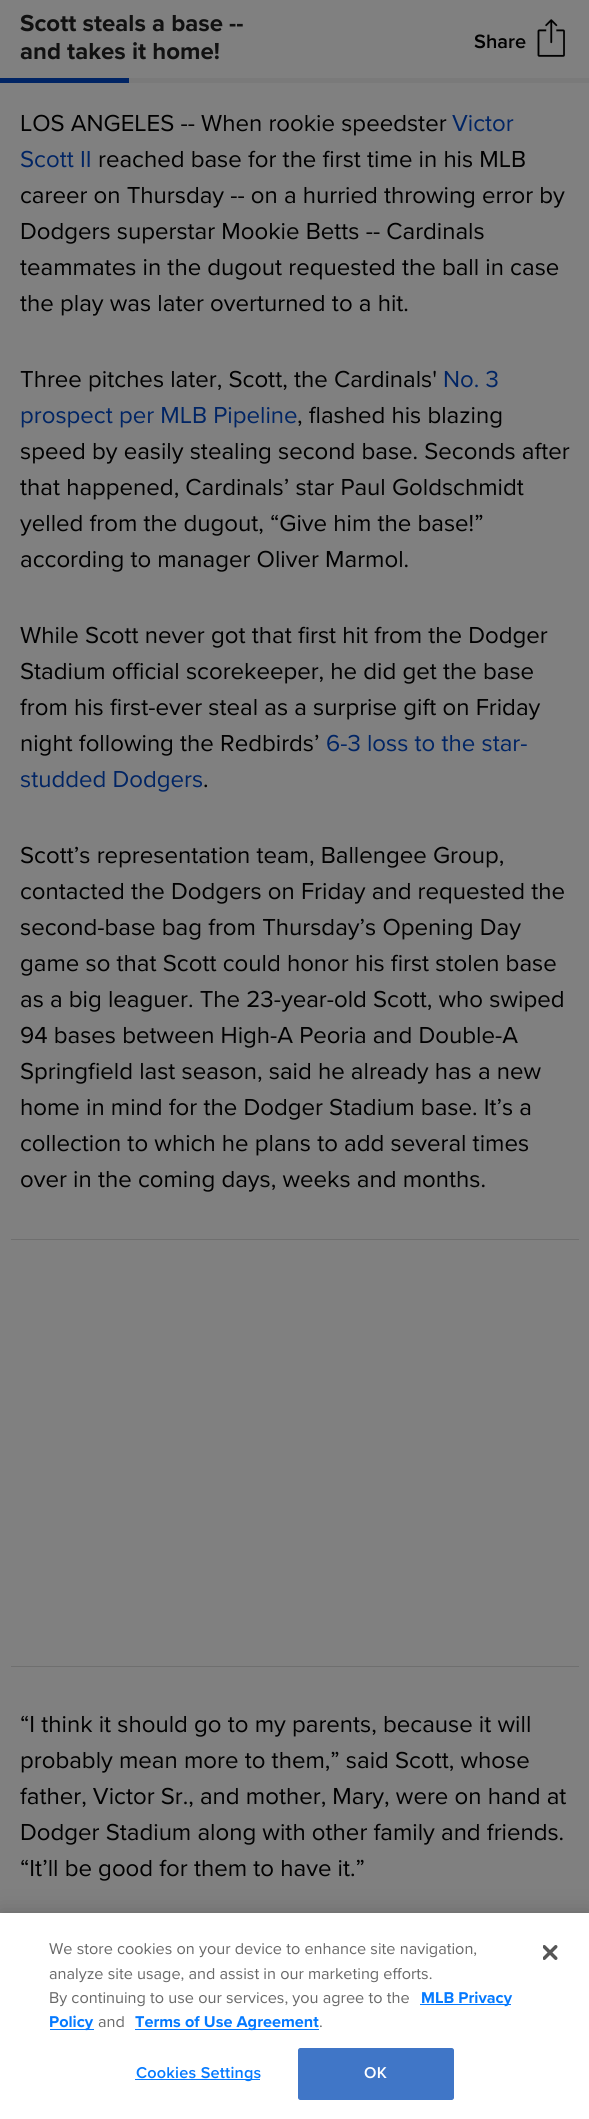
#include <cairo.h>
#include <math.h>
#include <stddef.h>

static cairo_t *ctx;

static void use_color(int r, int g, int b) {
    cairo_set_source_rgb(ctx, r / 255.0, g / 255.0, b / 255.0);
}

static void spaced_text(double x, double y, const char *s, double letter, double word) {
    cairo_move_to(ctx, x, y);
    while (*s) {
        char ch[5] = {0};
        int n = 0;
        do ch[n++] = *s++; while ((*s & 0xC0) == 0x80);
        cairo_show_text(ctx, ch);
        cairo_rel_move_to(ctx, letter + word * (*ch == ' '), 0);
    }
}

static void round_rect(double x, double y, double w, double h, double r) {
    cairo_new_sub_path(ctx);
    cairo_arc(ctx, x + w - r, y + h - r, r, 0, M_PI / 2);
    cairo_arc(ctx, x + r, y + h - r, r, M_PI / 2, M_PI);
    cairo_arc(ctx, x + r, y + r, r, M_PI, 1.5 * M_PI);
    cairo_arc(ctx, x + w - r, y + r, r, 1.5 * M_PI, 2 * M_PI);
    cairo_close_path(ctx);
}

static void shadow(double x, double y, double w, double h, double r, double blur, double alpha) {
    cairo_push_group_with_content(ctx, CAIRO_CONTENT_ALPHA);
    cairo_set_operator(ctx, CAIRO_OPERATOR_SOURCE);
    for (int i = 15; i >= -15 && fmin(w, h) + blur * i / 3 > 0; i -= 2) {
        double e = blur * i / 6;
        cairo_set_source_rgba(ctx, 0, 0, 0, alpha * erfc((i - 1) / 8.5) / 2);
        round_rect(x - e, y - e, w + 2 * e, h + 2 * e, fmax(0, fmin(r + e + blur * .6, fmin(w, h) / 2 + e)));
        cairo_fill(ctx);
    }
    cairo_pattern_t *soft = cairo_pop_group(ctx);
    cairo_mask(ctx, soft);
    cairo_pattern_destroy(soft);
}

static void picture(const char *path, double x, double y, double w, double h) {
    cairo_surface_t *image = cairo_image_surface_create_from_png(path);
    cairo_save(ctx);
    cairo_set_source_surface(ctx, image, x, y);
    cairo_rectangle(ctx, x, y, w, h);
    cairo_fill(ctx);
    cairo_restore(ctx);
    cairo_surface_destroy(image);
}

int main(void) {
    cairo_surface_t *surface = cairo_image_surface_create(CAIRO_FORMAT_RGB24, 589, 2119);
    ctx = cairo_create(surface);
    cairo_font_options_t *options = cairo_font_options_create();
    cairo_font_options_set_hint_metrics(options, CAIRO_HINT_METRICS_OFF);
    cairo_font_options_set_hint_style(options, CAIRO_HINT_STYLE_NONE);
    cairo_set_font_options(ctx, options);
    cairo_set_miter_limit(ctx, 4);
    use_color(128, 128, 128);
    cairo_paint(ctx);
    cairo_select_font_face(ctx, "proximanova", CAIRO_FONT_SLANT_NORMAL, CAIRO_FONT_WEIGHT_BOLD);
    cairo_set_font_size(ctx, 24);
    use_color(17, 17, 17);
    cairo_move_to(ctx, 20, 31);
    cairo_show_text(ctx, "Scott steals a base --");
    cairo_move_to(ctx, 20, 59);
    cairo_show_text(ctx, "and takes it home!");
    cairo_select_font_face(ctx, "Proxima Nova SemiBold", CAIRO_FONT_SLANT_NORMAL, CAIRO_FONT_WEIGHT_NORMAL);
    cairo_set_font_size(ctx, 20);
    use_color(0, 0, 0);
    cairo_move_to(ctx, 474, 48);
    cairo_show_text(ctx, "Share");
    picture("img1.png", 537, 19, 28, 38);
    use_color(122, 122, 122);
    cairo_rectangle(ctx, 129, 78, 460, 5);
    cairo_fill(ctx);
    use_color(0, 36, 100);
    cairo_rectangle(ctx, 0, 78, 129, 5);
    cairo_fill(ctx);
    cairo_select_font_face(ctx, "proximanova", CAIRO_FONT_SLANT_NORMAL, CAIRO_FONT_WEIGHT_NORMAL);
    cairo_set_font_size(ctx, 24);
    use_color(0, 0, 0);
    cairo_move_to(ctx, 20, 131);
    cairo_show_text(ctx, "LOS ANGELES -- When rookie speedster");
    use_color(0, 36, 100);
    cairo_move_to(ctx, 452, 131);
    cairo_show_text(ctx, "Victor");
    cairo_move_to(ctx, 20, 167);
    cairo_show_text(ctx, "Scott II");
    use_color(0, 0, 0);
    cairo_move_to(ctx, 98, 167);
    cairo_show_text(ctx, "reached base for the first time in his MLB");
    cairo_move_to(ctx, 20, 203);
    cairo_show_text(ctx, "career on Thursday -- on a hurried throwing error by");
    cairo_move_to(ctx, 20, 239);
    cairo_show_text(ctx, "Dodgers superstar Mookie Betts -- Cardinals");
    cairo_move_to(ctx, 20, 275);
    cairo_show_text(ctx, "teammates in the dugout requested the ball in case");
    cairo_move_to(ctx, 20, 311);
    cairo_show_text(ctx, "the play was later overturned to a hit.");
    cairo_move_to(ctx, 20, 387);
    cairo_show_text(ctx, "Three pitches later, Scott, the Cardinals'");
    use_color(0, 36, 100);
    cairo_move_to(ctx, 443, 387);
    cairo_show_text(ctx, "No. 3");
    cairo_move_to(ctx, 20, 423);
    cairo_show_text(ctx, "prospect per MLB Pipeline");
    use_color(0, 0, 0);
    cairo_move_to(ctx, 297, 423);
    cairo_show_text(ctx, ", flashed his blazing");
    cairo_move_to(ctx, 20, 459);
    cairo_show_text(ctx, "speed by easily stealing second base. Seconds after");
    cairo_move_to(ctx, 20, 495);
    cairo_show_text(ctx, "that happened, Cardinals’ star Paul Goldschmidt");
    cairo_move_to(ctx, 20, 531);
    cairo_show_text(ctx, "yelled from the dugout, “Give him the base!”");
    cairo_move_to(ctx, 20, 567);
    cairo_show_text(ctx, "according to manager Oliver Marmol.");
    cairo_move_to(ctx, 20, 643);
    cairo_show_text(ctx, "While Scott never got that first hit from the Dodger");
    cairo_move_to(ctx, 20, 679);
    cairo_show_text(ctx, "Stadium official scorekeeper, he did get the base");
    cairo_move_to(ctx, 20, 715);
    cairo_show_text(ctx, "from his first-ever steal as a surprise gift on Friday");
    cairo_move_to(ctx, 20, 751);
    cairo_show_text(ctx, "night following the Redbirds’");
    use_color(0, 36, 100);
    cairo_move_to(ctx, 326, 751);
    cairo_show_text(ctx, "6-3 loss to the star-");
    cairo_move_to(ctx, 20, 787);
    cairo_show_text(ctx, "studded Dodgers");
    use_color(0, 0, 0);
    cairo_move_to(ctx, 203, 787);
    cairo_show_text(ctx, ".");
    cairo_move_to(ctx, 20, 863);
    cairo_show_text(ctx, "Scott’s representation team, Ballengee Group,");
    cairo_move_to(ctx, 20, 899);
    cairo_show_text(ctx, "contacted the Dodgers on Friday and requested the");
    cairo_move_to(ctx, 20, 935);
    cairo_show_text(ctx, "second-base bag from Thursday’s Opening Day");
    cairo_move_to(ctx, 20, 971);
    cairo_show_text(ctx, "game so that Scott could honor his first stolen base");
    cairo_move_to(ctx, 20, 1007);
    cairo_show_text(ctx, "as a big leaguer. The 23-year-old Scott, who swiped");
    cairo_move_to(ctx, 20, 1043);
    cairo_show_text(ctx, "94 bases between High-A Peoria and Double-A");
    cairo_move_to(ctx, 20, 1079);
    cairo_show_text(ctx, "Springfield last season, said he already has a new");
    cairo_move_to(ctx, 20, 1115);
    cairo_show_text(ctx, "home in mind for the Dodger Stadium base. It’s a");
    cairo_move_to(ctx, 20, 1151);
    cairo_show_text(ctx, "collection to which he plans to add several times");
    cairo_move_to(ctx, 20, 1187);
    cairo_show_text(ctx, "over in the coming days, weeks and months.");
    use_color(111, 111, 111);
    cairo_rectangle(ctx, 11, 1239, 568, 1);
    cairo_fill(ctx);
    cairo_rectangle(ctx, 11, 1666, 568, 1);
    cairo_fill(ctx);
    use_color(0, 0, 0);
    cairo_move_to(ctx, 20, 1732);
    cairo_show_text(ctx, "“I think it should go to my parents, because it will");
    cairo_move_to(ctx, 20, 1768);
    cairo_show_text(ctx, "probably mean more to them,” said Scott, whose");
    cairo_move_to(ctx, 20, 1804);
    cairo_show_text(ctx, "father, Victor Sr., and mother, Mary, were on hand at");
    cairo_move_to(ctx, 20, 1840);
    cairo_show_text(ctx, "Dodger Stadium along with other family and friends.");
    cairo_move_to(ctx, 20, 1876);
    cairo_show_text(ctx, "“It’ll be good for them to have it.”");
    use_color(0, 0, 0);
    shadow(0, 1913, 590, 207, 0, 11, 0.2);
    use_color(255, 255, 255);
    cairo_rectangle(ctx, 0, 1913, 589, 206);
    cairo_fill(ctx);
    cairo_set_font_size(ctx, 16.25);
    use_color(105, 105, 105);
    cairo_move_to(ctx, 49, 1954);
    cairo_show_text(ctx, "We store cookies on your device to enhance site navigation,");
    cairo_move_to(ctx, 49, 1979);
    cairo_show_text(ctx, "analyze site usage, and assist in our marketing efforts.");
    cairo_move_to(ctx, 49, 2003);
    cairo_show_text(ctx, "By continuing to use our services, you agree to the");
    use_color(5, 122, 255);
    cairo_rectangle(ctx, 420, 2004, 91, 1);
    cairo_fill(ctx);
    cairo_select_font_face(ctx, "proximanova", CAIRO_FONT_SLANT_NORMAL, CAIRO_FONT_WEIGHT_BOLD);
    cairo_move_to(ctx, 421, 2003);
    cairo_show_text(ctx, "MLB Privacy");
    cairo_rectangle(ctx, 50, 2029, 44, 1);
    cairo_fill(ctx);
    cairo_move_to(ctx, 49, 2027);
    cairo_show_text(ctx, "Policy");
    cairo_select_font_face(ctx, "proximanova", CAIRO_FONT_SLANT_NORMAL, CAIRO_FONT_WEIGHT_NORMAL);
    use_color(105, 105, 105);
    cairo_move_to(ctx, 98, 2027);
    cairo_show_text(ctx, "and");
    use_color(5, 122, 255);
    cairo_rectangle(ctx, 135, 2029, 184, 1);
    cairo_fill(ctx);
    cairo_select_font_face(ctx, "proximanova", CAIRO_FONT_SLANT_NORMAL, CAIRO_FONT_WEIGHT_BOLD);
    cairo_move_to(ctx, 135, 2027);
    cairo_show_text(ctx, "Terms of Use Agreement");
    cairo_select_font_face(ctx, "proximanova", CAIRO_FONT_SLANT_NORMAL, CAIRO_FONT_WEIGHT_NORMAL);
    use_color(105, 105, 105);
    cairo_move_to(ctx, 319, 2027);
    cairo_show_text(ctx, ".");
    use_color(5, 122, 255);
    cairo_rectangle(ctx, 135, 2079, 125, 1);
    cairo_fill(ctx);
    cairo_select_font_face(ctx, "Proxima Nova SemiBold", CAIRO_FONT_SLANT_NORMAL, CAIRO_FONT_WEIGHT_NORMAL);
    spaced_text(136, 2078, "Cookies Settings", 0.2, 0);
    use_color(64, 118, 199);
    round_rect(298.5, 2048.5, 155, 51, 2);
    cairo_fill_preserve(ctx);
    cairo_set_line_width(ctx, 1);
    cairo_stroke(ctx);
    use_color(255, 255, 255);
    spaced_text(364, 2078, "OK", 0.2, 0);
    picture("img2.png", 543, 1945, 15, 15);
    cairo_surface_write_to_png(surface, "result.png");
    cairo_font_options_destroy(options);
    cairo_destroy(ctx);
    cairo_surface_destroy(surface);
    return 0;
}
